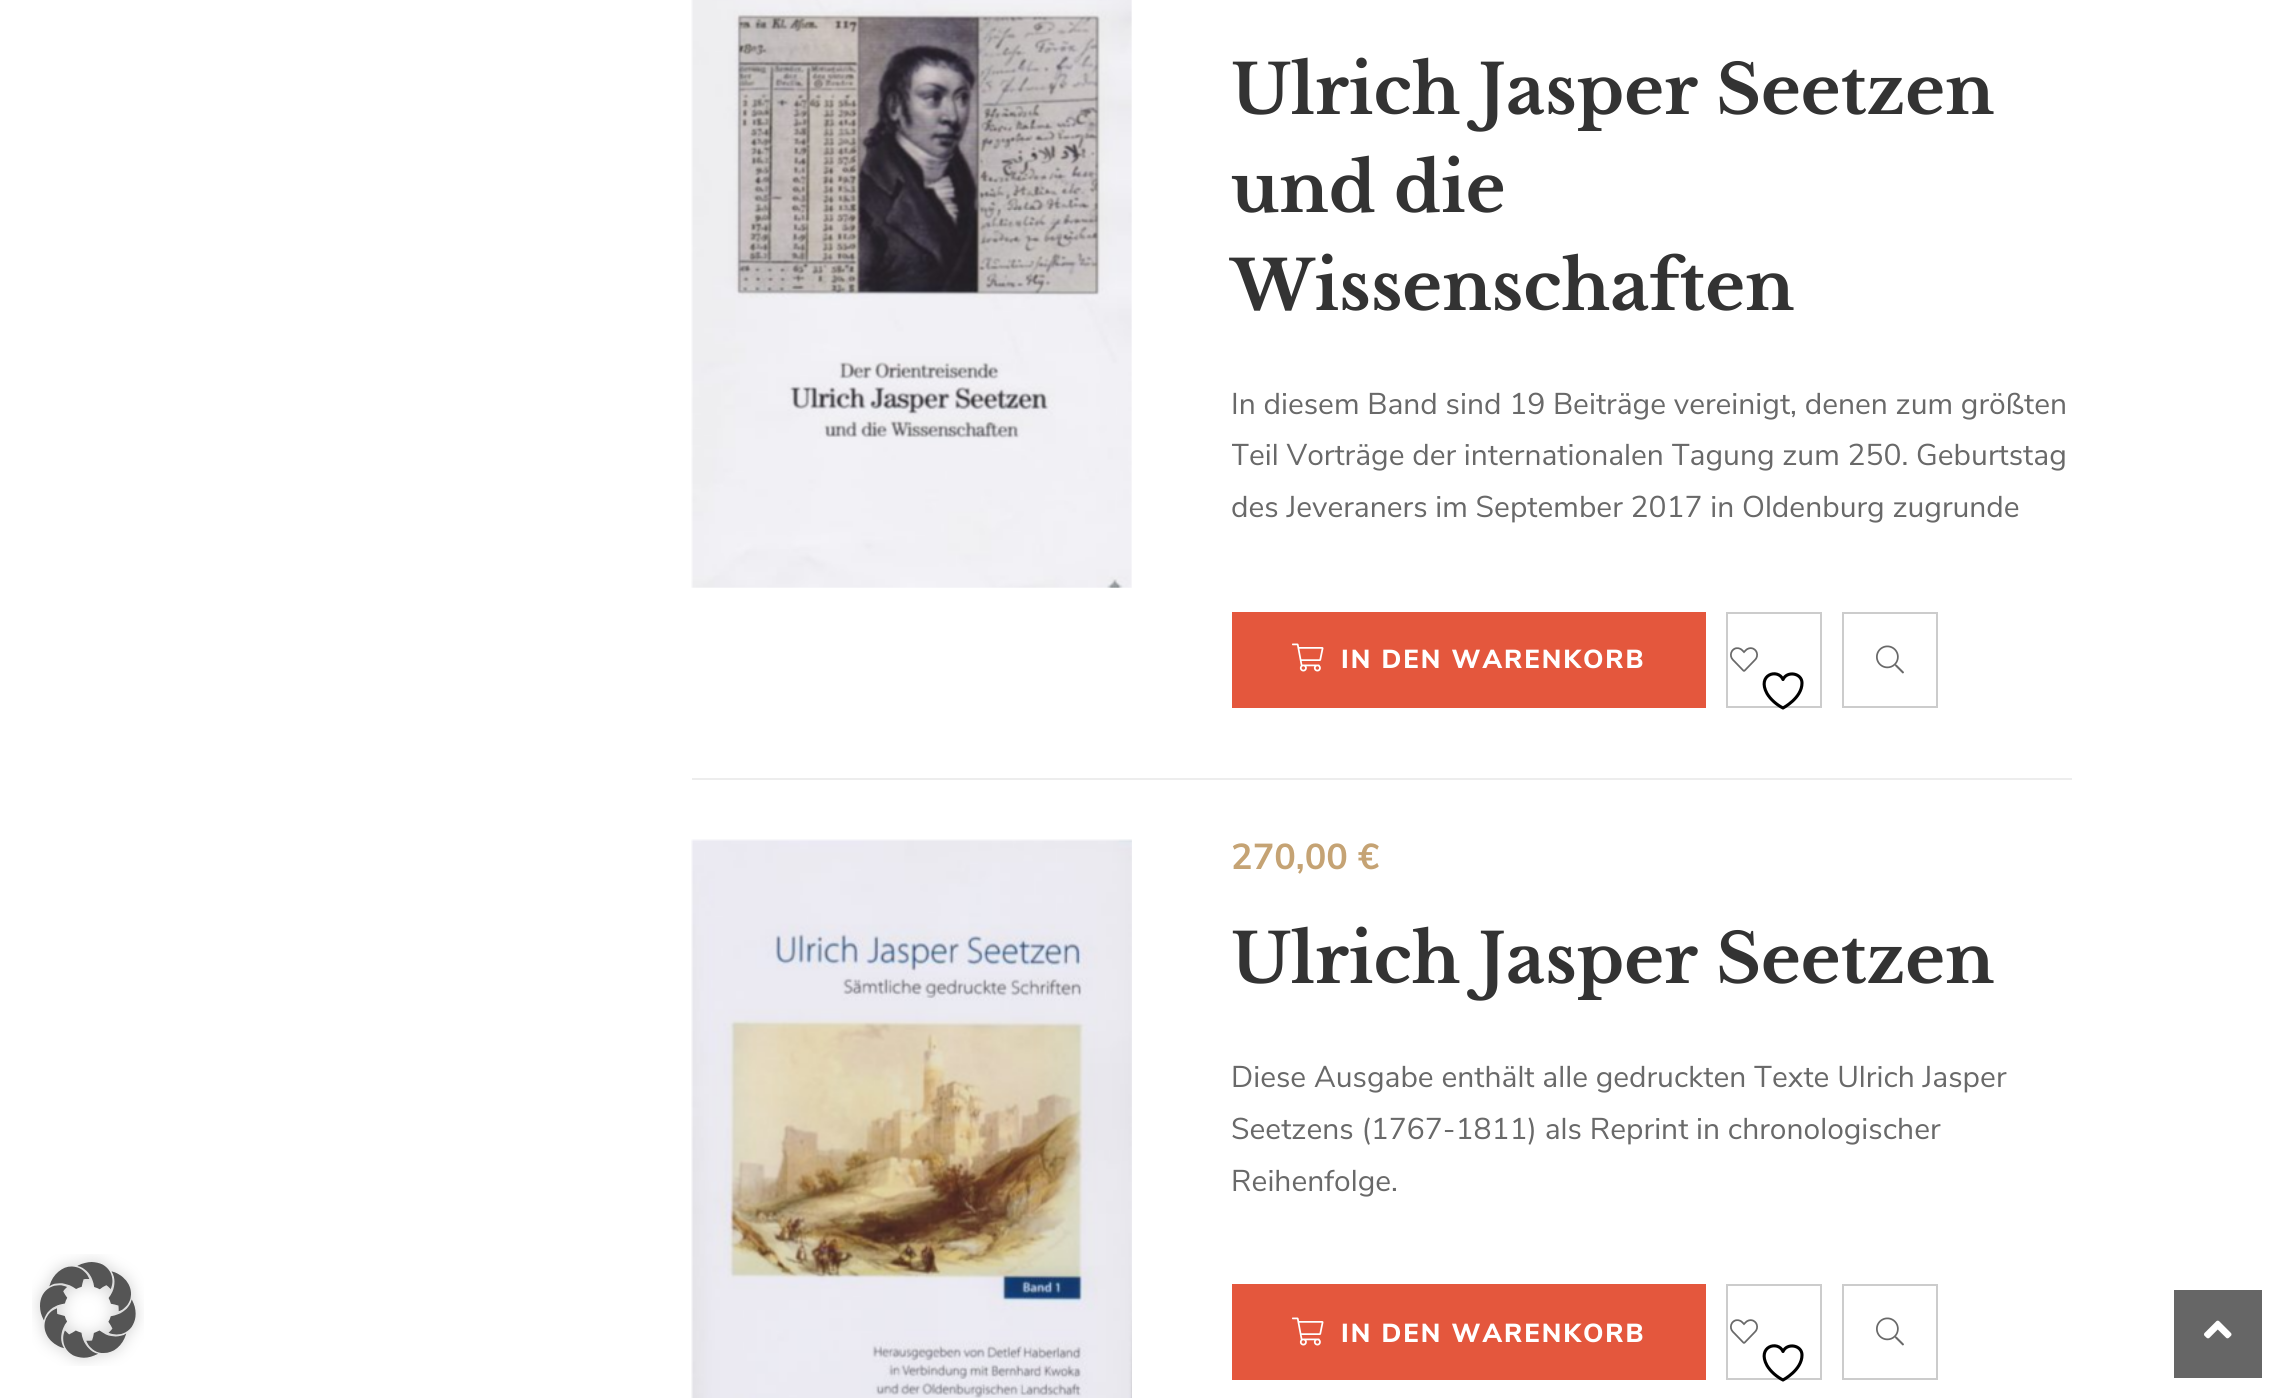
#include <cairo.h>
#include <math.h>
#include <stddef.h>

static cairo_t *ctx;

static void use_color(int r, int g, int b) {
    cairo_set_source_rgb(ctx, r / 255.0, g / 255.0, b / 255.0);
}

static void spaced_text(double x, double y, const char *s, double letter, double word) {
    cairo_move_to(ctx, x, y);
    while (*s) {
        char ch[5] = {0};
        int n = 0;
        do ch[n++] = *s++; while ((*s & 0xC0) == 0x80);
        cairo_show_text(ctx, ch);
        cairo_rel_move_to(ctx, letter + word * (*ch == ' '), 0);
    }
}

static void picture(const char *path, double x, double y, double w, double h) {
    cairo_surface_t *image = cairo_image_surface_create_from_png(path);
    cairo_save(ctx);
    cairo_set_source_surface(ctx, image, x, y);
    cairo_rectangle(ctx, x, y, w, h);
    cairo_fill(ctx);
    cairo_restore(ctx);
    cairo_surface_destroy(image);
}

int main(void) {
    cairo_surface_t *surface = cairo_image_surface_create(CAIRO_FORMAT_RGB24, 2282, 1398);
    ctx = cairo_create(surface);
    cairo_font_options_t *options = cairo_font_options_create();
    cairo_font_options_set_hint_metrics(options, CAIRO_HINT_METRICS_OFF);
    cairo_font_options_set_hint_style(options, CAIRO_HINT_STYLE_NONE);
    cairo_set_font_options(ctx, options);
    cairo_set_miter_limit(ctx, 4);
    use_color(255, 255, 255);
    cairo_paint(ctx);
    picture("img1.png", 32, 1254, 112, 112);
    use_color(237, 237, 237);
    cairo_rectangle(ctx, 692, 778, 1380, 2);
    cairo_fill(ctx);
    picture("img2.png", 691, 0, 441, 588);
    cairo_select_font_face(ctx, "Libre Baskerville", CAIRO_FONT_SLANT_NORMAL, CAIRO_FONT_WEIGHT_BOLD);
    cairo_set_font_size(ctx, 68);
    use_color(51, 51, 51);
    cairo_move_to(ctx, 1231, 114);
    cairo_show_text(ctx, "Ulrich Jasper Seetzen");
    cairo_move_to(ctx, 1231, 212);
    cairo_show_text(ctx, "und die");
    cairo_move_to(ctx, 1231, 310);
    cairo_show_text(ctx, "Wissenschaften");
    cairo_select_font_face(ctx, "Nunito Sans", CAIRO_FONT_SLANT_NORMAL, CAIRO_FONT_WEIGHT_NORMAL);
    cairo_set_font_size(ctx, 30);
    use_color(105, 105, 105);
    cairo_move_to(ctx, 1231, 414);
    cairo_show_text(ctx, "In diesem Band sind 19 Beiträge vereinigt, denen zum größten");
    cairo_save(ctx);
    cairo_rectangle(ctx, 1232, 380, 840, 156);
    cairo_clip(ctx);
    cairo_move_to(ctx, 1231, 465);
    cairo_show_text(ctx, "Teil Vorträge der internationalen Tagung zum 250. Geburtstag");
    cairo_restore(ctx);
    cairo_move_to(ctx, 1231, 517);
    cairo_show_text(ctx, "des Jeveraners im September 2017 in Oldenburg zugrunde");
    use_color(228, 87, 61);
    cairo_rectangle(ctx, 1232, 612, 474, 96);
    cairo_fill(ctx);
    picture("img3.png", 1292, 643, 32, 29);
    cairo_select_font_face(ctx, "Nunito Sans ExtraBold", CAIRO_FONT_SLANT_NORMAL, CAIRO_FONT_WEIGHT_NORMAL);
    cairo_set_font_size(ctx, 26);
    use_color(255, 255, 255);
    spaced_text(1341, 668, "IN DEN WARENKORB", 2, 0);
    cairo_rectangle(ctx, 1727, 613, 94, 94);
    use_color(204, 204, 204);
    cairo_stroke(ctx);
    picture("img4.png", 1730, 647, 28, 25);
    cairo_new_path(ctx);
    cairo_move_to(ctx, 1802, 683);
    cairo_curve_to(ctx, 1802, 673, 1787, 670.5, 1783, 679.5);
    cairo_curve_to(ctx, 1778, 668, 1756.5, 674.5, 1767, 693.5);
    cairo_curve_to(ctx, 1770.5, 699.5, 1777, 705, 1783, 708);
    cairo_curve_to(ctx, 1783, 708, 1802, 698, 1802, 683);
    cairo_close_path(ctx);
    use_color(0, 0, 0);
    cairo_set_line_width(ctx, 3.1);
    cairo_set_line_cap(ctx, CAIRO_LINE_CAP_ROUND);
    cairo_set_line_join(ctx, CAIRO_LINE_JOIN_ROUND);
    cairo_stroke(ctx);
    cairo_rectangle(ctx, 1843, 613, 94, 94);
    use_color(204, 204, 204);
    cairo_set_line_width(ctx, 2);
    cairo_set_line_cap(ctx, CAIRO_LINE_CAP_BUTT);
    cairo_set_line_join(ctx, CAIRO_LINE_JOIN_MITER);
    cairo_stroke(ctx);
    picture("img5.png", 1876, 645, 28, 29);
    picture("img6.png", 691, 839, 441, 559);
    cairo_select_font_face(ctx, "Nunito Sans", CAIRO_FONT_SLANT_NORMAL, CAIRO_FONT_WEIGHT_BOLD);
    cairo_set_font_size(ctx, 36);
    use_color(197, 163, 116);
    cairo_move_to(ctx, 1231, 869);
    cairo_show_text(ctx, "270,00 €");
    cairo_select_font_face(ctx, "Libre Baskerville", CAIRO_FONT_SLANT_NORMAL, CAIRO_FONT_WEIGHT_BOLD);
    cairo_set_font_size(ctx, 68);
    use_color(51, 51, 51);
    cairo_move_to(ctx, 1231, 983);
    cairo_show_text(ctx, "Ulrich Jasper Seetzen");
    cairo_select_font_face(ctx, "Nunito Sans", CAIRO_FONT_SLANT_NORMAL, CAIRO_FONT_WEIGHT_NORMAL);
    cairo_set_font_size(ctx, 30);
    use_color(105, 105, 105);
    cairo_move_to(ctx, 1231, 1087);
    cairo_show_text(ctx, "Diese Ausgabe enthält alle gedruckten Texte Ulrich Jasper");
    cairo_move_to(ctx, 1231, 1139);
    cairo_show_text(ctx, "Seetzens (1767-1811) als Reprint in chronologischer");
    cairo_move_to(ctx, 1231, 1191);
    cairo_show_text(ctx, "Reihenfolge.");
    use_color(228, 87, 61);
    cairo_rectangle(ctx, 1232, 1284, 474, 96);
    cairo_fill(ctx);
    picture("img3.png", 1292, 1317, 32, 29);
    cairo_select_font_face(ctx, "Nunito Sans ExtraBold", CAIRO_FONT_SLANT_NORMAL, CAIRO_FONT_WEIGHT_NORMAL);
    cairo_set_font_size(ctx, 26);
    use_color(255, 255, 255);
    spaced_text(1341, 1342, "IN DEN WARENKORB", 2, 0);
    cairo_rectangle(ctx, 1727, 1285, 94, 94);
    use_color(204, 204, 204);
    cairo_stroke(ctx);
    picture("img4.png", 1730, 1319, 28, 25);
    cairo_new_path(ctx);
    cairo_move_to(ctx, 1802, 1355);
    cairo_curve_to(ctx, 1802, 1345, 1787, 1342.5, 1783, 1351.5);
    cairo_curve_to(ctx, 1778, 1340, 1756.5, 1346.5, 1767, 1365.5);
    cairo_curve_to(ctx, 1770.5, 1371.5, 1777, 1377, 1783, 1380);
    cairo_curve_to(ctx, 1783, 1380, 1802, 1370, 1802, 1355);
    cairo_close_path(ctx);
    use_color(0, 0, 0);
    cairo_set_line_width(ctx, 3.1);
    cairo_set_line_cap(ctx, CAIRO_LINE_CAP_ROUND);
    cairo_set_line_join(ctx, CAIRO_LINE_JOIN_ROUND);
    cairo_stroke(ctx);
    cairo_rectangle(ctx, 1843, 1285, 94, 94);
    use_color(204, 204, 204);
    cairo_set_line_width(ctx, 2);
    cairo_set_line_cap(ctx, CAIRO_LINE_CAP_BUTT);
    cairo_set_line_join(ctx, CAIRO_LINE_JOIN_MITER);
    cairo_stroke(ctx);
    picture("img5.png", 1876, 1317, 28, 29);
    use_color(102, 102, 102);
    cairo_rectangle(ctx, 2174, 1290, 88, 88);
    cairo_fill(ctx);
    picture("img7.png", 2204, 1320, 28, 19);
    cairo_surface_write_to_png(surface, "result.png");
    cairo_font_options_destroy(options);
    cairo_destroy(ctx);
    cairo_surface_destroy(surface);
    return 0;
}
